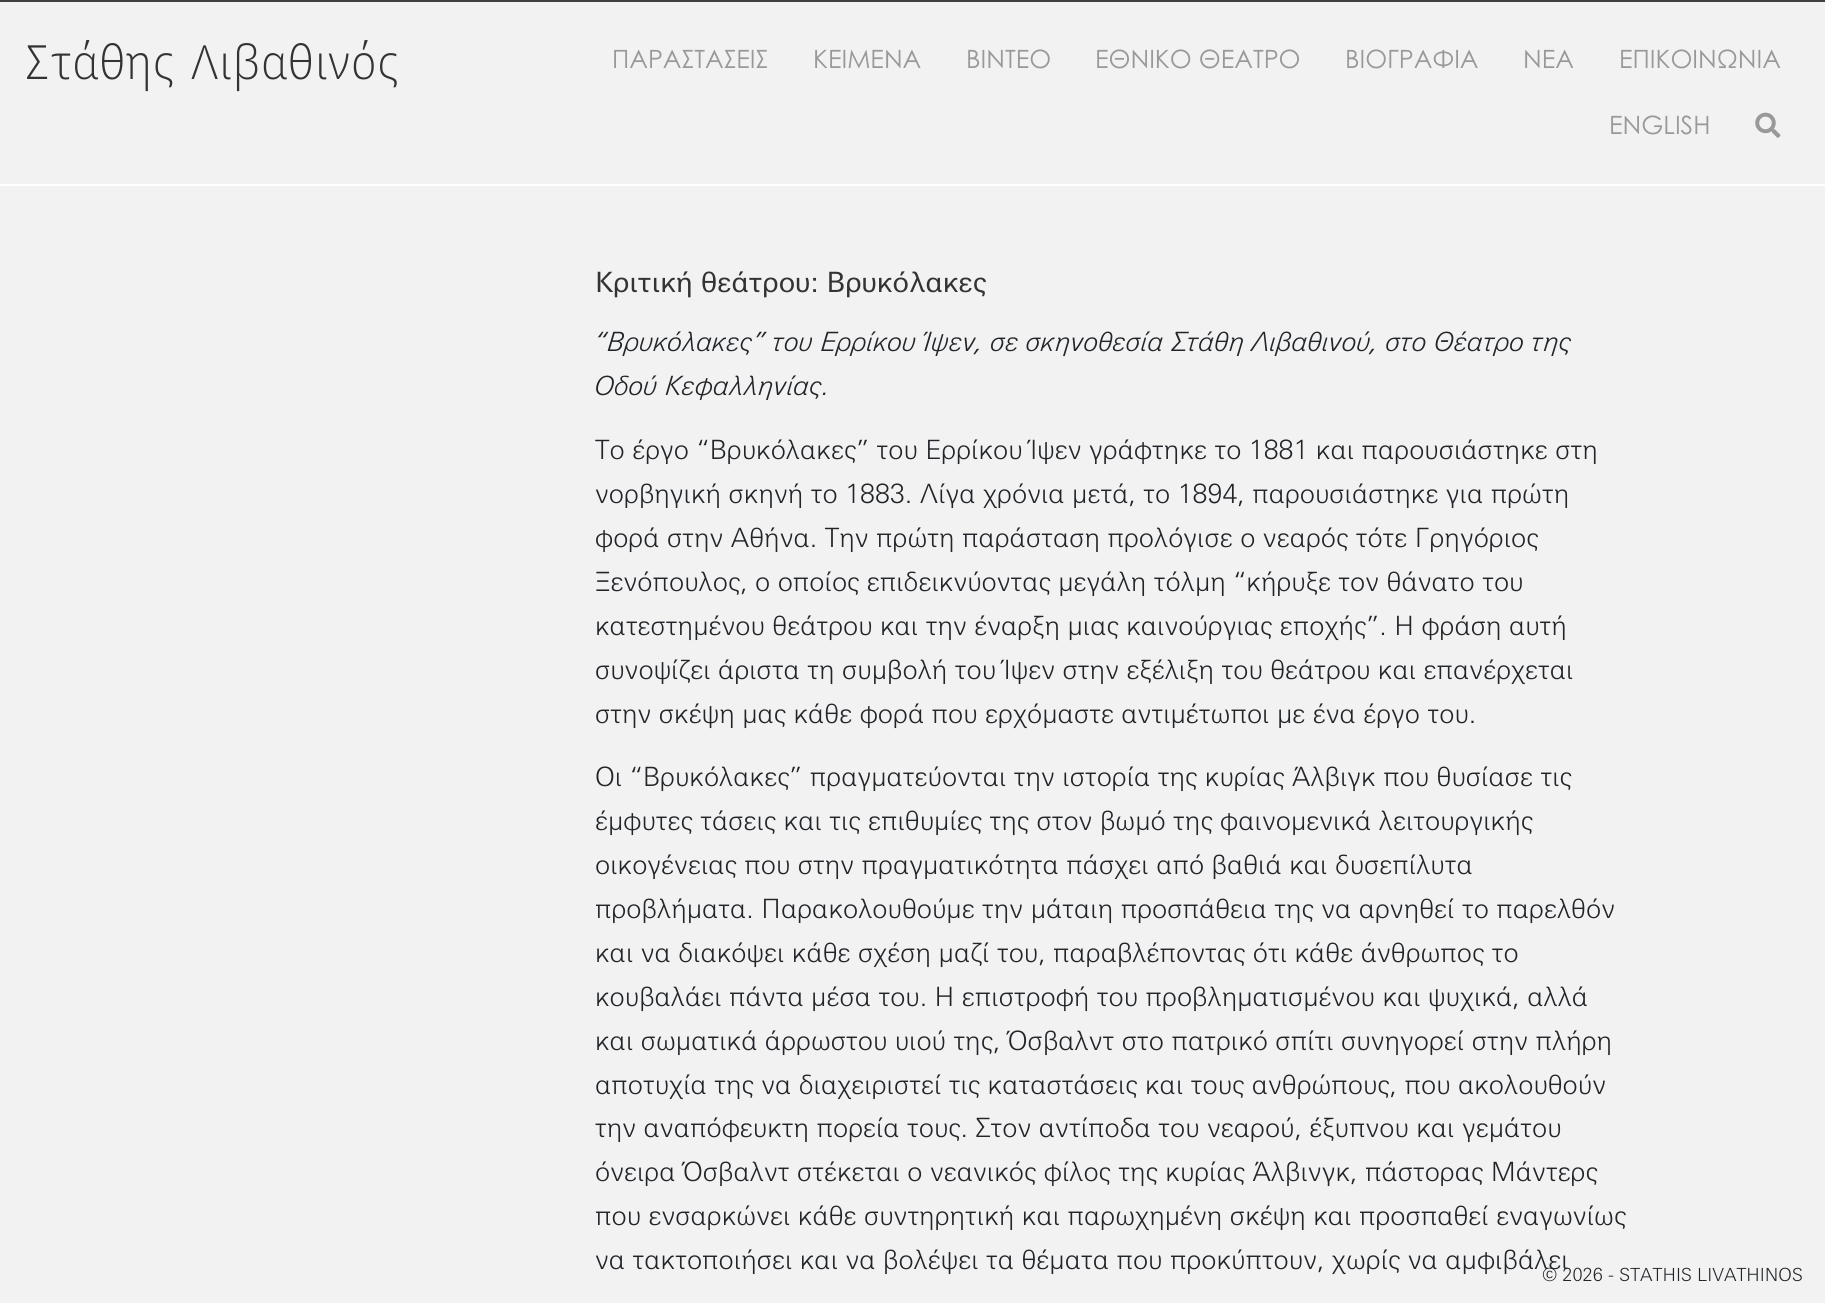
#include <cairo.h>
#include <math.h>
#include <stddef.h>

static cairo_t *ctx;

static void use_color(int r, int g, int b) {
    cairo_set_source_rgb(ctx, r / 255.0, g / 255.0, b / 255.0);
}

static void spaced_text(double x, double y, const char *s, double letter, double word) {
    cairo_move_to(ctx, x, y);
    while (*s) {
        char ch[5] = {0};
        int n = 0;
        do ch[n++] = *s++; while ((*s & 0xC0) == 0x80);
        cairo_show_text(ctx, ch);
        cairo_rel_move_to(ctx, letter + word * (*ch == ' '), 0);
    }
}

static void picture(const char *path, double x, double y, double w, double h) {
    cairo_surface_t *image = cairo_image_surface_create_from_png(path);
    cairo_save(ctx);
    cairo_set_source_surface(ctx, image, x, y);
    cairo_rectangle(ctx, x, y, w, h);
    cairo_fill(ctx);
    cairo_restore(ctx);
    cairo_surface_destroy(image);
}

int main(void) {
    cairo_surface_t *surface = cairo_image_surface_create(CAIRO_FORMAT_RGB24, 1825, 1303);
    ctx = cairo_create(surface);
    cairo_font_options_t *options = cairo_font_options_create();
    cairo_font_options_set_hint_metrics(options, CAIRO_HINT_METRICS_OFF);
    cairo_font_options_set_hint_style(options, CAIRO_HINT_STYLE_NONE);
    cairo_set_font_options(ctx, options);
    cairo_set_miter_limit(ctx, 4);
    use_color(242, 242, 242);
    cairo_paint(ctx);
    use_color(64, 64, 64);
    cairo_rectangle(ctx, 0, 0, 1825, 2);
    cairo_fill(ctx);
    use_color(255, 255, 255);
    cairo_rectangle(ctx, 0, 184, 1825, 2);
    cairo_fill(ctx);
    cairo_select_font_face(ctx, "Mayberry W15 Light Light", CAIRO_FONT_SLANT_NORMAL, CAIRO_FONT_WEIGHT_NORMAL);
    cairo_set_font_size(ctx, 50.5);
    use_color(51, 51, 51);
    spaced_text(26, 79, "Στάθης Λιβαθινός", 1.75, 0);
    cairo_select_font_face(ctx, "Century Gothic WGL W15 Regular", CAIRO_FONT_SLANT_NORMAL, CAIRO_FONT_WEIGHT_NORMAL);
    cairo_set_font_size(ctx, 25.25);
    use_color(153, 153, 153);
    cairo_move_to(ctx, 612, 68);
    cairo_show_text(ctx, "ΠΑΡΑΣΤΑΣΕΙΣ");
    cairo_move_to(ctx, 813, 68);
    cairo_show_text(ctx, "ΚΕΙΜΕΝΑ");
    cairo_move_to(ctx, 966, 68);
    cairo_show_text(ctx, "ΒΙΝΤΕΟ");
    cairo_move_to(ctx, 1095, 68);
    cairo_show_text(ctx, "ΕΘΝΙΚΟ ΘΕΑΤΡΟ");
    cairo_move_to(ctx, 1345, 68);
    cairo_show_text(ctx, "ΒΙΟΓΡΑΦΙΑ");
    cairo_move_to(ctx, 1523, 68);
    cairo_show_text(ctx, "ΝΕΑ");
    cairo_move_to(ctx, 1619, 68);
    cairo_show_text(ctx, "ΕΠΙΚΟΙΝΩΝΙΑ");
    cairo_move_to(ctx, 1609, 134);
    cairo_show_text(ctx, "ENGLISH");
    picture("img1.png", 1755, 112, 26, 26);
    cairo_select_font_face(ctx, "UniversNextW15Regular", CAIRO_FONT_SLANT_NORMAL, CAIRO_FONT_WEIGHT_NORMAL);
    cairo_set_font_size(ctx, 28);
    use_color(51, 51, 51);
    cairo_move_to(ctx, 595, 292);
    cairo_show_text(ctx, "Κριτική θεάτρου: Βρυκόλακες");
    cairo_select_font_face(ctx, "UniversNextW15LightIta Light", CAIRO_FONT_SLANT_NORMAL, CAIRO_FONT_WEIGHT_NORMAL);
    cairo_set_font_size(ctx, 26.6);
    use_color(33, 37, 41);
    cairo_move_to(ctx, 595, 351);
    cairo_show_text(ctx, "“Βρυκόλακες” του Ερρίκου Ίψεν, σε σκηνοθεσία Στάθη Λιβαθινού, στο Θέατρο της");
    cairo_move_to(ctx, 595, 395);
    cairo_show_text(ctx, "Οδού Κεφαλληνίας.");
    cairo_select_font_face(ctx, "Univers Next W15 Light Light", CAIRO_FONT_SLANT_NORMAL, CAIRO_FONT_WEIGHT_NORMAL);
    cairo_move_to(ctx, 595, 459);
    cairo_show_text(ctx, "Το έργο “Βρυκόλακες” του Ερρίκου Ίψεν γράφτηκε το 1881 και παρουσιάστηκε στη");
    cairo_move_to(ctx, 595, 503);
    cairo_show_text(ctx, "νορβηγική σκηνή το 1883. Λίγα χρόνια μετά, το 1894, παρουσιάστηκε για πρώτη");
    cairo_move_to(ctx, 595, 547);
    cairo_show_text(ctx, "φορά στην Αθήνα. Την πρώτη παράσταση προλόγισε ο νεαρός τότε Γρηγόριος");
    cairo_move_to(ctx, 595, 591);
    cairo_show_text(ctx, "Ξενόπουλος, ο οποίος επιδεικνύοντας μεγάλη τόλμη “κήρυξε τον θάνατο του");
    cairo_move_to(ctx, 595, 635);
    cairo_show_text(ctx, "κατεστημένου θεάτρου και την έναρξη μιας καινούργιας εποχής”. Η φράση αυτή");
    cairo_move_to(ctx, 595, 679);
    cairo_show_text(ctx, "συνοψίζει άριστα τη συμβολή του Ίψεν στην εξέλιξη του θεάτρου και επανέρχεται");
    cairo_move_to(ctx, 595, 723);
    cairo_show_text(ctx, "στην σκέψη μας κάθε φορά που ερχόμαστε αντιμέτωποι με ένα έργο του.");
    cairo_move_to(ctx, 595, 786);
    cairo_show_text(ctx, "Οι “Βρυκόλακες” πραγματεύονται την ιστορία της κυρίας Άλβιγκ που θυσίασε τις");
    cairo_move_to(ctx, 595, 830);
    cairo_show_text(ctx, "έμφυτες τάσεις και τις επιθυμίες της στον βωμό της φαινομενικά λειτουργικής");
    cairo_move_to(ctx, 595, 874);
    cairo_show_text(ctx, "οικογένειας που στην πραγματικότητα πάσχει από βαθιά και δυσεπίλυτα");
    cairo_move_to(ctx, 595, 918);
    cairo_show_text(ctx, "προβλήματα. Παρακολουθούμε την μάταιη προσπάθεια της να αρνηθεί το παρελθόν");
    cairo_move_to(ctx, 595, 962);
    cairo_show_text(ctx, "και να διακόψει κάθε σχέση μαζί του, παραβλέποντας ότι κάθε άνθρωπος το");
    cairo_move_to(ctx, 595, 1006);
    cairo_show_text(ctx, "κουβαλάει πάντα μέσα του. Η επιστροφή του προβληματισμένου και ψυχικά, αλλά");
    cairo_move_to(ctx, 595, 1050);
    cairo_show_text(ctx, "και σωματικά άρρωστου υιού της, Όσβαλντ στο πατρικό σπίτι συνηγορεί στην πλήρη");
    cairo_move_to(ctx, 595, 1094);
    cairo_show_text(ctx, "αποτυχία της να διαχειριστεί τις καταστάσεις και τους ανθρώπους, που ακολουθούν");
    cairo_move_to(ctx, 595, 1137);
    cairo_show_text(ctx, "την αναπόφευκτη πορεία τους. Στον αντίποδα του νεαρού, έξυπνου και γεμάτου");
    cairo_move_to(ctx, 595, 1181);
    cairo_show_text(ctx, "όνειρα Όσβαλντ στέκεται ο νεανικός φίλος της κυρίας Άλβινγκ, πάστορας Μάντερς");
    cairo_move_to(ctx, 595, 1225);
    cairo_show_text(ctx, "που ενσαρκώνει κάθε συντηρητική και παρωχημένη σκέψη και προσπαθεί εναγωνίως");
    cairo_move_to(ctx, 595, 1269);
    cairo_show_text(ctx, "να τακτοποιήσει και να βολέψει τα θέματα που προκύπτουν, χωρίς να αμφιβάλει");
    cairo_set_font_size(ctx, 18.1);
    cairo_move_to(ctx, 1542, 1281);
    cairo_show_text(ctx, "© 2026 - STATHIS LIVATHINOS");
    cairo_surface_write_to_png(surface, "result.png");
    cairo_font_options_destroy(options);
    cairo_destroy(ctx);
    cairo_surface_destroy(surface);
    return 0;
}
